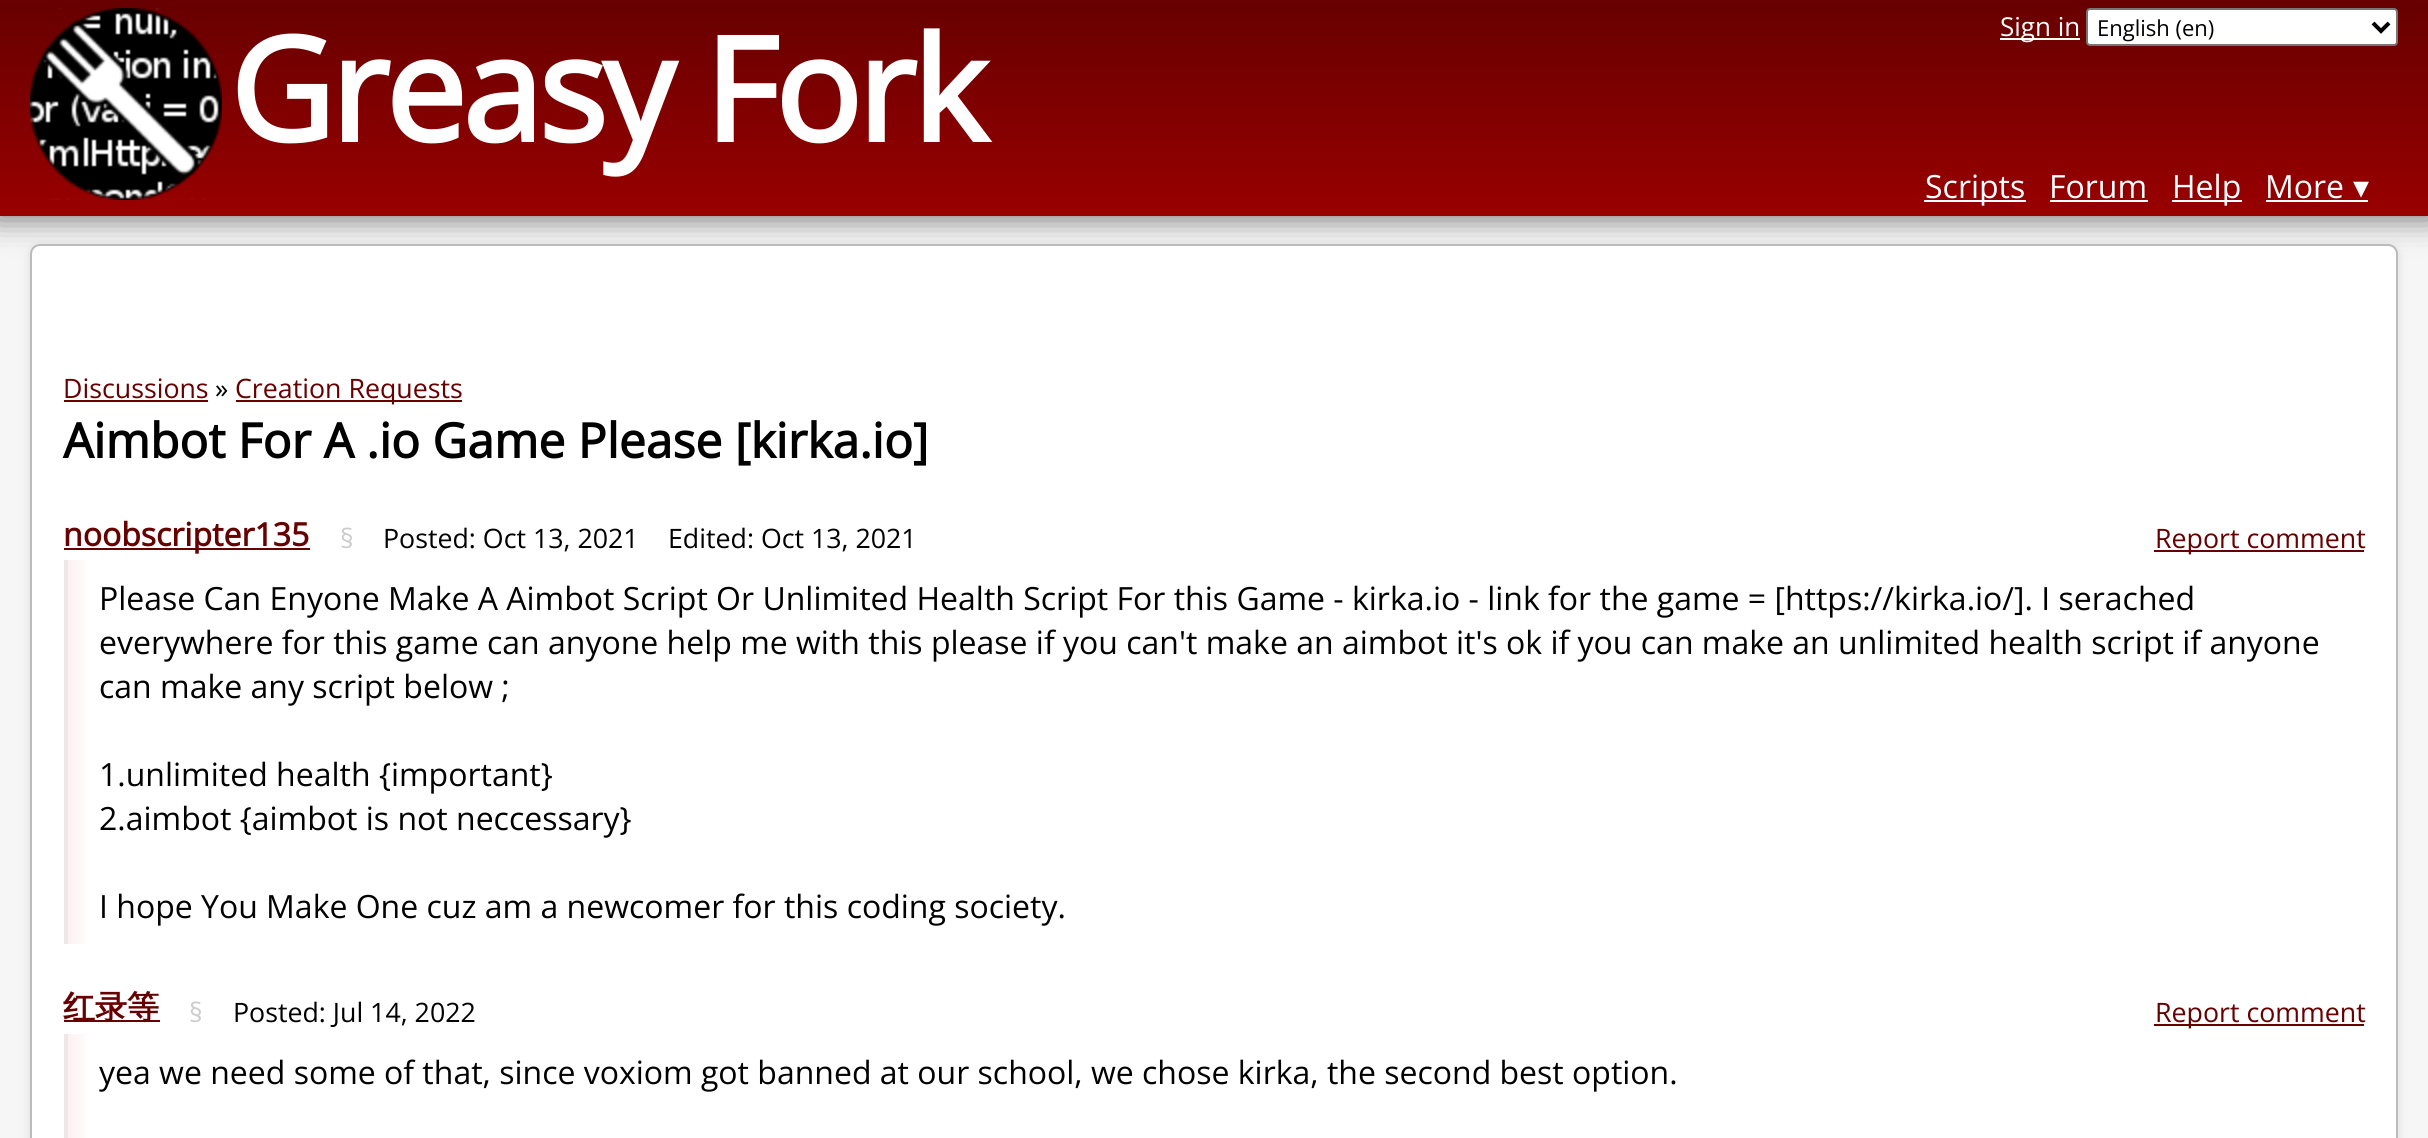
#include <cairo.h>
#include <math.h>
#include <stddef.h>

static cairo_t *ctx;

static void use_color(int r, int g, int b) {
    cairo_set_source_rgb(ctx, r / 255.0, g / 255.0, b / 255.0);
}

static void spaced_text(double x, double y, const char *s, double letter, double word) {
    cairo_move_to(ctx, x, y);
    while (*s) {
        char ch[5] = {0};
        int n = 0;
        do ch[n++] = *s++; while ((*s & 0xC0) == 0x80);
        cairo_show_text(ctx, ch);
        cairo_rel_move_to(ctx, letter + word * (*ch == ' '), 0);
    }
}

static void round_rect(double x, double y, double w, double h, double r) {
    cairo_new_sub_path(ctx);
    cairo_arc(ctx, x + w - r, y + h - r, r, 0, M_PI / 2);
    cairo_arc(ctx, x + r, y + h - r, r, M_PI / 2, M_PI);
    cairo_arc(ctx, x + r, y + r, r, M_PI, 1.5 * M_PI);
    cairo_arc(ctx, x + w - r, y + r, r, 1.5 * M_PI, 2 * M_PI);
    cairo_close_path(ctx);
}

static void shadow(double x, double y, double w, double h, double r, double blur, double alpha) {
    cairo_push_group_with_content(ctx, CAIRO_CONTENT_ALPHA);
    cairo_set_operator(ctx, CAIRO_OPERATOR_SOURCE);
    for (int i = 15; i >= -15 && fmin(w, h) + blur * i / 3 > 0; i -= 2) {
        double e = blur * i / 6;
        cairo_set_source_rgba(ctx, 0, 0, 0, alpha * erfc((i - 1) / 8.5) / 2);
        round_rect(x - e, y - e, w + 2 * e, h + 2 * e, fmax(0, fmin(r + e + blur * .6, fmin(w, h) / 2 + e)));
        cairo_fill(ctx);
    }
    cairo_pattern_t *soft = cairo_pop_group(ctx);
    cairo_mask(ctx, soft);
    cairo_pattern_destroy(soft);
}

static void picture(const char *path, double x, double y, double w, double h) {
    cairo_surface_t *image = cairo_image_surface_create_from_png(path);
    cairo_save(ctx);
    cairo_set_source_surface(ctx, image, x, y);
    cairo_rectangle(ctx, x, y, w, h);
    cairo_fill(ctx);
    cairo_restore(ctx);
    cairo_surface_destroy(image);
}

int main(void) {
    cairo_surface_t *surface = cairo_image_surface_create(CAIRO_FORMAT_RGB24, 2428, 1138);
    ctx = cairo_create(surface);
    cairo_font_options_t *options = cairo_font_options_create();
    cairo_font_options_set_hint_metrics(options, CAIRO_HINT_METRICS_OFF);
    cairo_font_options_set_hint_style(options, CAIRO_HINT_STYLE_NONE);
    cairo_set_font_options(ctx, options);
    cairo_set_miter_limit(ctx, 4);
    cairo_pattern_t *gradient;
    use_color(246, 246, 246);
    cairo_paint(ctx);
    use_color(0, 0, 0);
    shadow(-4, -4, 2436, 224, 0, 15, 0.5);
    gradient = cairo_pattern_create_linear(1214, 0, 1214, 216);
    cairo_pattern_add_color_stop_rgba(gradient, 0, 0.404, 0, 0, 1);
    cairo_pattern_add_color_stop_rgba(gradient, 1, 0.6, 0, 0, 1);
    cairo_set_source(ctx, gradient);
    cairo_pattern_destroy(gradient);
    cairo_rectangle(ctx, 0, 0, 2428, 216);
    cairo_fill(ctx);
    picture("img1.png", 30, 8, 192, 192);
    cairo_select_font_face(ctx, "Open Sans", CAIRO_FONT_SLANT_NORMAL, CAIRO_FONT_WEIGHT_BOLD);
    cairo_set_font_size(ctx, 144);
    use_color(255, 255, 255);
    spaced_text(229, 142, "Greasy Fork", -4, 0);
    cairo_rectangle(ctx, 2000, 38, 80, 2);
    cairo_fill(ctx);
    cairo_select_font_face(ctx, "Open Sans", CAIRO_FONT_SLANT_NORMAL, CAIRO_FONT_WEIGHT_NORMAL);
    cairo_set_font_size(ctx, 26);
    cairo_move_to(ctx, 2000, 36);
    cairo_show_text(ctx, "Sign in");
    round_rect(2087, 9, 310, 36, 3);
    cairo_fill_preserve(ctx);
    use_color(118, 118, 118);
    cairo_stroke(ctx);
    cairo_new_path(ctx);
    cairo_move_to(ctx, 2373, 23);
    cairo_line_to(ctx, 2381, 31);
    cairo_line_to(ctx, 2389, 23);
    use_color(0, 0, 0);
    cairo_set_line_width(ctx, 4);
    cairo_stroke(ctx);
    cairo_set_font_size(ctx, 22);
    cairo_move_to(ctx, 2097, 36);
    cairo_show_text(ctx, "English (en)");
    use_color(255, 255, 255);
    cairo_rectangle(ctx, 1924, 200, 102, 2);
    cairo_fill(ctx);
    cairo_set_font_size(ctx, 32);
    cairo_move_to(ctx, 1925, 198);
    cairo_show_text(ctx, "Scripts");
    cairo_move_to(ctx, 2049, 198);
    cairo_show_text(ctx, "Forum");
    cairo_rectangle(ctx, 2050, 200, 98, 2);
    cairo_fill(ctx);
    cairo_rectangle(ctx, 2172, 200, 70, 2);
    cairo_fill(ctx);
    cairo_move_to(ctx, 2172, 198);
    cairo_show_text(ctx, "Help");
    cairo_move_to(ctx, 2265, 198);
    cairo_show_text(ctx, "More");
    cairo_select_font_face(ctx, "DejaVu Sans", CAIRO_FONT_SLANT_NORMAL, CAIRO_FONT_WEIGHT_NORMAL);
    cairo_move_to(ctx, 2353, 198);
    cairo_show_text(ctx, "▾");
    cairo_rectangle(ctx, 2266, 200, 102, 2);
    cairo_fill(ctx);
    use_color(221, 221, 221);
    shadow(30, 244, 2368, 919, 10, 5, 1);
    use_color(255, 255, 255);
    round_rect(31, 245, 2366, 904, 9);
    cairo_fill_preserve(ctx);
    use_color(187, 187, 187);
    cairo_set_line_width(ctx, 2);
    cairo_stroke(ctx);
    cairo_select_font_face(ctx, "Open Sans", CAIRO_FONT_SLANT_NORMAL, CAIRO_FONT_WEIGHT_NORMAL);
    cairo_set_font_size(ctx, 26.75);
    use_color(103, 0, 0);
    cairo_move_to(ctx, 63, 398);
    cairo_show_text(ctx, "Discussions");
    cairo_rectangle(ctx, 64, 400, 144, 2);
    cairo_fill(ctx);
    use_color(0, 0, 0);
    cairo_move_to(ctx, 215, 398);
    cairo_show_text(ctx, "»");
    use_color(103, 0, 0);
    cairo_rectangle(ctx, 236, 400, 226, 2);
    cairo_fill(ctx);
    cairo_move_to(ctx, 235, 398);
    cairo_show_text(ctx, "Creation Requests");
    cairo_select_font_face(ctx, "Open Sans", CAIRO_FONT_SLANT_NORMAL, CAIRO_FONT_WEIGHT_BOLD);
    cairo_set_font_size(ctx, 48);
    use_color(0, 0, 0);
    cairo_move_to(ctx, 63, 458);
    cairo_show_text(ctx, "Aimbot For A .io Game Please [kirka.io]");
    use_color(103, 0, 0);
    cairo_rectangle(ctx, 64, 548, 246, 2);
    cairo_fill(ctx);
    cairo_set_font_size(ctx, 32);
    cairo_move_to(ctx, 63, 546);
    cairo_show_text(ctx, "noobscripter135");
    cairo_select_font_face(ctx, "Open Sans", CAIRO_FONT_SLANT_NORMAL, CAIRO_FONT_WEIGHT_NORMAL);
    cairo_set_font_size(ctx, 26.75);
    use_color(204, 204, 204);
    cairo_move_to(ctx, 340, 548);
    cairo_show_text(ctx, "§");
    use_color(0, 0, 0);
    cairo_move_to(ctx, 383, 548);
    cairo_show_text(ctx, "Posted: Oct 13, 2021");
    cairo_move_to(ctx, 668, 548);
    cairo_show_text(ctx, "Edited: Oct 13, 2021");
    use_color(103, 0, 0);
    cairo_rectangle(ctx, 2154, 550, 210, 2);
    cairo_fill(ctx);
    cairo_move_to(ctx, 2155, 548);
    cairo_show_text(ctx, "Report comment");
    gradient = cairo_pattern_create_linear(68, 752, 2364, 752);
    cairo_pattern_add_color_stop_rgba(gradient, 0, 0.988, 0.945, 0.945, 1);
    cairo_pattern_add_color_stop_rgba(gradient, 0.01, 1, 1, 1, 1);
    cairo_set_source(ctx, gradient);
    cairo_pattern_destroy(gradient);
    cairo_rectangle(ctx, 68, 560, 19, 384);
    cairo_fill(ctx);
    use_color(242, 229, 229);
    cairo_rectangle(ctx, 64, 560, 4, 384);
    cairo_fill(ctx);
    cairo_set_font_size(ctx, 32);
    use_color(0, 0, 0);
    cairo_move_to(ctx, 99, 610);
    cairo_show_text(ctx, "Please Can Enyone Make A Aimbot Script Or Unlimited Health Script For this Game - kirka.io - link for the game = [https://kirka.io/]. I serached");
    cairo_move_to(ctx, 99, 654);
    cairo_show_text(ctx, "everywhere for this game can anyone help me with this please if you can't make an aimbot it's ok if you can make an unlimited health script if anyone");
    cairo_move_to(ctx, 99, 698);
    cairo_show_text(ctx, "can make any script below ;");
    cairo_move_to(ctx, 99, 786);
    cairo_show_text(ctx, "1.unlimited health {important}");
    cairo_move_to(ctx, 99, 830);
    cairo_show_text(ctx, "2.aimbot {aimbot is not neccessary}");
    cairo_move_to(ctx, 99, 918);
    cairo_show_text(ctx, "I hope You Make One cuz am a newcomer for this coding society.");
    use_color(103, 0, 0);
    cairo_rectangle(ctx, 64, 1020, 96, 2);
    cairo_fill(ctx);
    cairo_select_font_face(ctx, "WenQuanYi Zen Hei", CAIRO_FONT_SLANT_NORMAL, CAIRO_FONT_WEIGHT_BOLD);
    cairo_move_to(ctx, 63, 1018);
    cairo_show_text(ctx, "红录等");
    cairo_select_font_face(ctx, "Open Sans", CAIRO_FONT_SLANT_NORMAL, CAIRO_FONT_WEIGHT_NORMAL);
    cairo_set_font_size(ctx, 26.75);
    use_color(204, 204, 204);
    cairo_move_to(ctx, 189, 1022);
    cairo_show_text(ctx, "§");
    use_color(0, 0, 0);
    cairo_move_to(ctx, 233, 1022);
    cairo_show_text(ctx, "Posted: Jul 14, 2022");
    use_color(103, 0, 0);
    cairo_rectangle(ctx, 2154, 1024, 210, 2);
    cairo_fill(ctx);
    cairo_move_to(ctx, 2155, 1022);
    cairo_show_text(ctx, "Report comment");
    gradient = cairo_pattern_create_linear(68, 1117, 2364, 1117);
    cairo_pattern_add_color_stop_rgba(gradient, 0, 0.988, 0.945, 0.945, 1);
    cairo_pattern_add_color_stop_rgba(gradient, 0.01, 1, 1, 1, 1);
    cairo_set_source(ctx, gradient);
    cairo_pattern_destroy(gradient);
    cairo_rectangle(ctx, 68, 1034, 19, 104);
    cairo_fill(ctx);
    use_color(242, 229, 229);
    cairo_rectangle(ctx, 64, 1034, 4, 104);
    cairo_fill(ctx);
    cairo_set_font_size(ctx, 32);
    use_color(0, 0, 0);
    cairo_move_to(ctx, 99, 1084);
    cairo_show_text(ctx, "yea we need some of that, since voxiom got banned at our school, we chose kirka, the second best option.");
    cairo_surface_write_to_png(surface, "result.png");
    cairo_font_options_destroy(options);
    cairo_destroy(ctx);
    cairo_surface_destroy(surface);
    return 0;
}
